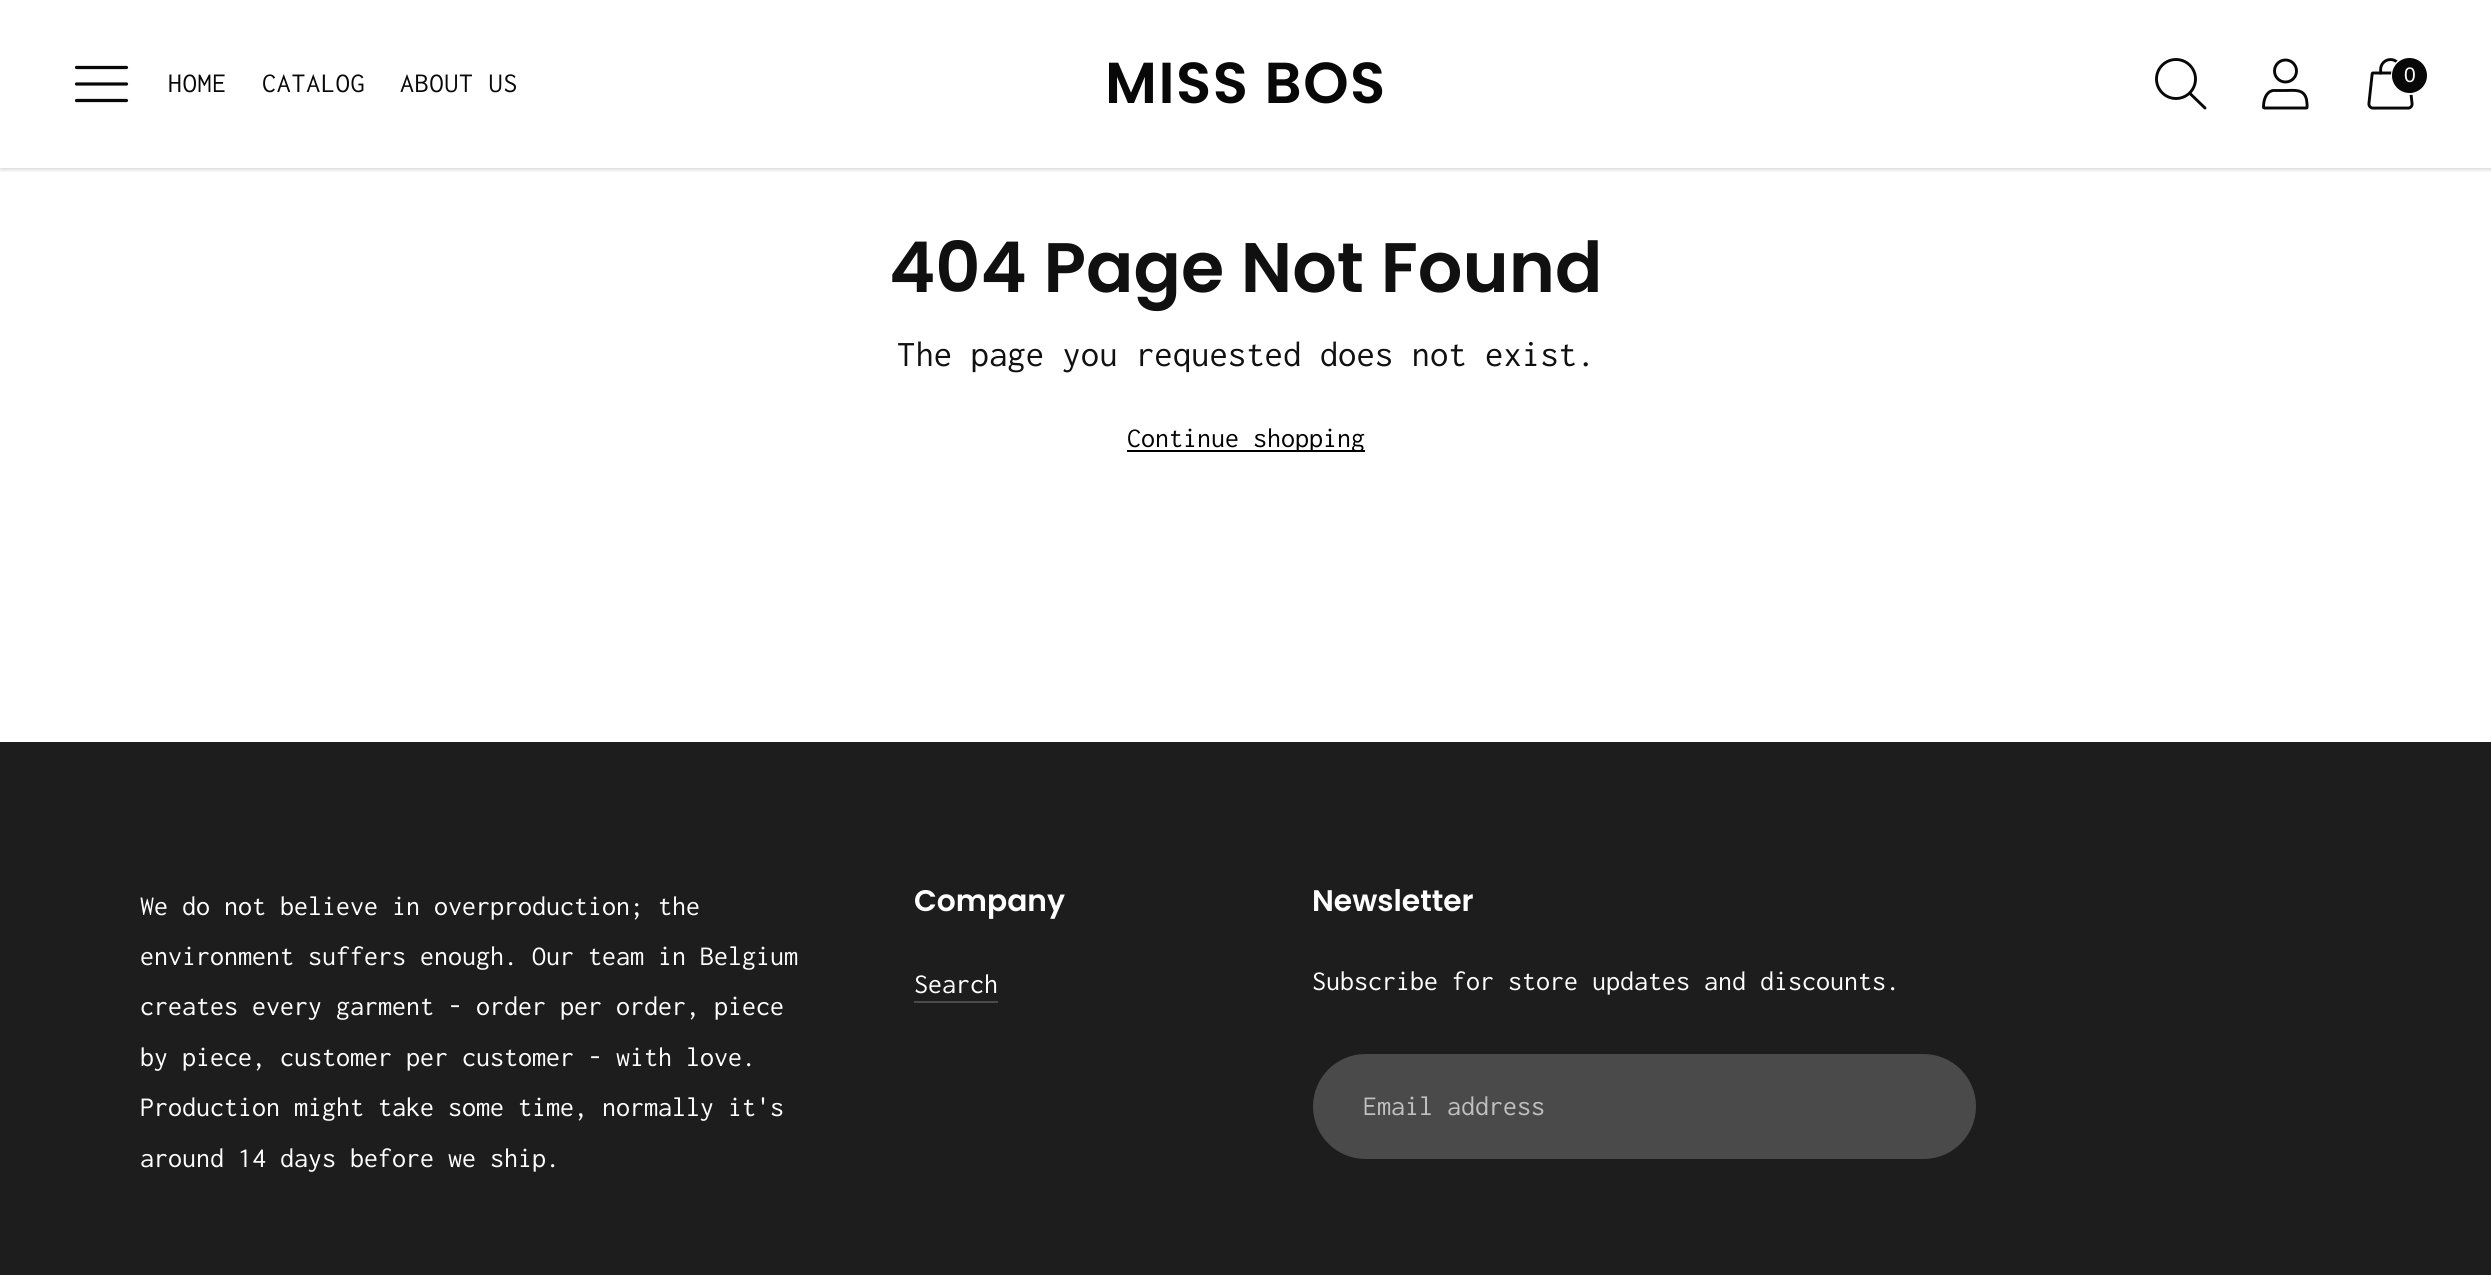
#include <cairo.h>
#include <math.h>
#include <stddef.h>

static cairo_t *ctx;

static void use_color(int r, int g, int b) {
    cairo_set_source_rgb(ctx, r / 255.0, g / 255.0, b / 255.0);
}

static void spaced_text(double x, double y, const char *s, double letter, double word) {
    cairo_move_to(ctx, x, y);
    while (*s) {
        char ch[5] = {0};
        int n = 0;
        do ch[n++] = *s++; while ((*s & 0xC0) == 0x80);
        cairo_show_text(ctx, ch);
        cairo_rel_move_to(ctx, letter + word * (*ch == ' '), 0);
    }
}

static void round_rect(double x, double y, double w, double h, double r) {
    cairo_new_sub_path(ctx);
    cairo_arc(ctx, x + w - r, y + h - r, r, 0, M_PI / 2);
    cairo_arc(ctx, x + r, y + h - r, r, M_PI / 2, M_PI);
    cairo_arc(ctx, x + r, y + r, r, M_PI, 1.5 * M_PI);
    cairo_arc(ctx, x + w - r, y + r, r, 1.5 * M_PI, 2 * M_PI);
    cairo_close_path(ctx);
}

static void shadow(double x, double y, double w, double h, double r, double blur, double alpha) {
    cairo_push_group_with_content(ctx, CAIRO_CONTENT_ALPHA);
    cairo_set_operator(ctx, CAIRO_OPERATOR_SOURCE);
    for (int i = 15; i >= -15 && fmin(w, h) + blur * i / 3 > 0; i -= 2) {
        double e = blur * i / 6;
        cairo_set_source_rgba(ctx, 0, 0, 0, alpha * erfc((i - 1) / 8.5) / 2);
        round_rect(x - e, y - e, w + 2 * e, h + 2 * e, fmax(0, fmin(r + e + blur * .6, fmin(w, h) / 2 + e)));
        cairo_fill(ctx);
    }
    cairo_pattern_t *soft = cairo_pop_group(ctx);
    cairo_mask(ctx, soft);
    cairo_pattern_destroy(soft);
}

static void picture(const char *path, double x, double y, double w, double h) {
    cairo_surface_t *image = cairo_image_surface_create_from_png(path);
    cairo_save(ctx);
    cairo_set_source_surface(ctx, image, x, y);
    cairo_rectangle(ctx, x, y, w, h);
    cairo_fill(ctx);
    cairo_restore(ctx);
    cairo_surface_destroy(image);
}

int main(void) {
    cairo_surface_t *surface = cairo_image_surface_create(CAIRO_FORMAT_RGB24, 2491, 1275);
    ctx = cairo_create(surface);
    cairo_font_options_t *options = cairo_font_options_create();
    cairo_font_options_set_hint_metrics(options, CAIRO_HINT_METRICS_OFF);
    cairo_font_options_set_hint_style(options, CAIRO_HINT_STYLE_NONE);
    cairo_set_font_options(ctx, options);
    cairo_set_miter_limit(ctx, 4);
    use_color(255, 255, 255);
    cairo_paint(ctx);
    cairo_save(ctx);
    cairo_rectangle(ctx, 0, 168, 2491, 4);
    cairo_clip(ctx);
    use_color(0, 0, 0);
    shadow(0, 2, 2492, 168, 0, 2, 0.15);
    cairo_restore(ctx);
    cairo_new_path(ctx);
    cairo_move_to(ctx, 76.5, 84);
    cairo_line_to(ctx, 126.5, 84);
    cairo_move_to(ctx, 76.5, 67.5);
    cairo_line_to(ctx, 126.5, 67.5);
    cairo_move_to(ctx, 76.5, 100.5);
    cairo_line_to(ctx, 126.5, 100.5);
    use_color(8, 8, 8);
    cairo_set_line_width(ctx, 3.2);
    cairo_set_line_cap(ctx, CAIRO_LINE_CAP_ROUND);
    cairo_set_line_join(ctx, CAIRO_LINE_JOIN_ROUND);
    cairo_stroke(ctx);
    cairo_select_font_face(ctx, "Inconsolata", CAIRO_FONT_SLANT_NORMAL, CAIRO_FONT_WEIGHT_NORMAL);
    cairo_set_font_size(ctx, 28);
    spaced_text(168, 92, "HOME", 0.75, 0);
    spaced_text(262, 92, "CATALOG", 0.75, 0);
    spaced_text(400, 92, "ABOUT US", 0.75, 0);
    cairo_select_font_face(ctx, "Poppins SemiBold", CAIRO_FONT_SLANT_NORMAL, CAIRO_FONT_WEIGHT_NORMAL);
    cairo_set_font_size(ctx, 57.75);
    spaced_text(1105, 103, "MISS BOS", 1.5, 0);
    cairo_new_path(ctx);
    cairo_arc(ctx, 2176, 79, 19.5, 0, 2 * M_PI);
    cairo_set_line_width(ctx, 2.9);
    cairo_set_line_cap(ctx, CAIRO_LINE_CAP_BUTT);
    cairo_set_line_join(ctx, CAIRO_LINE_JOIN_MITER);
    cairo_stroke(ctx);
    cairo_new_path(ctx);
    cairo_move_to(ctx, 2190.5, 94);
    cairo_line_to(ctx, 2205, 108);
    cairo_set_line_cap(ctx, CAIRO_LINE_CAP_ROUND);
    cairo_set_line_join(ctx, CAIRO_LINE_JOIN_ROUND);
    cairo_stroke(ctx);
    cairo_arc(ctx, 2285.5, 71, 11, 0, 2 * M_PI);
    cairo_set_line_cap(ctx, CAIRO_LINE_CAP_BUTT);
    cairo_set_line_join(ctx, CAIRO_LINE_JOIN_MITER);
    cairo_stroke(ctx);
    cairo_new_path(ctx);
    cairo_move_to(ctx, 2306.5, 108);
    cairo_curve_to(ctx, 2308, 108, 2306.5, 100.5, 2306.5, 99.5);
    cairo_curve_to(ctx, 2304, 88.5, 2294, 90.5, 2285.5, 90.5);
    cairo_line_to(ctx, 2273, 90.5);
    cairo_curve_to(ctx, 2265.5, 92, 2263.5, 100.5, 2263.5, 107.5);
    cairo_line_to(ctx, 2264.5, 108);
    cairo_close_path(ctx);
    cairo_set_line_cap(ctx, CAIRO_LINE_CAP_ROUND);
    cairo_set_line_join(ctx, CAIRO_LINE_JOIN_ROUND);
    cairo_stroke(ctx);
    picture("img1.png", 2367, 58, 47, 52);
    round_rect(2392, 57, 36, 37, 18);
    use_color(255, 255, 255);
    cairo_set_line_width(ctx, 2);
    cairo_set_line_cap(ctx, CAIRO_LINE_CAP_BUTT);
    cairo_set_line_join(ctx, CAIRO_LINE_JOIN_MITER);
    cairo_stroke(ctx);
    use_color(8, 8, 8);
    cairo_arc(ctx, 2409.5, 75.5, 17.5, 0, 2 * M_PI);
    cairo_fill(ctx);
    cairo_select_font_face(ctx, "Liberation Sans", CAIRO_FONT_SLANT_NORMAL, CAIRO_FONT_WEIGHT_NORMAL);
    cairo_set_font_size(ctx, 21);
    use_color(255, 255, 255);
    cairo_move_to(ctx, 2404, 82);
    cairo_show_text(ctx, "0");
    cairo_select_font_face(ctx, "Poppins SemiBold", CAIRO_FONT_SLANT_NORMAL, CAIRO_FONT_WEIGHT_NORMAL);
    cairo_set_font_size(ctx, 70);
    use_color(16, 16, 16);
    cairo_move_to(ctx, 889, 292);
    cairo_show_text(ctx, "404 Page Not Found");
    cairo_select_font_face(ctx, "Inconsolata", CAIRO_FONT_SLANT_NORMAL, CAIRO_FONT_WEIGHT_NORMAL);
    cairo_set_font_size(ctx, 36.75);
    cairo_move_to(ctx, 897, 366);
    cairo_show_text(ctx, "The page you requested does not exist.");
    use_color(0, 0, 0);
    cairo_rectangle(ctx, 1127, 450, 238, 2);
    cairo_fill(ctx);
    cairo_set_font_size(ctx, 28);
    cairo_move_to(ctx, 1127, 447);
    cairo_show_text(ctx, "Continue shopping");
    use_color(29, 29, 29);
    cairo_rectangle(ctx, 0, 742, 2491, 533);
    cairo_fill(ctx);
    use_color(255, 255, 255);
    cairo_move_to(ctx, 140, 915);
    cairo_show_text(ctx, "We do not believe in overproduction; the");
    cairo_move_to(ctx, 140, 965);
    cairo_show_text(ctx, "environment suffers enough. Our team in Belgium");
    cairo_move_to(ctx, 140, 1015);
    cairo_show_text(ctx, "creates every garment - order per order, piece");
    cairo_move_to(ctx, 140, 1066);
    cairo_show_text(ctx, "by piece, customer per customer - with love.");
    cairo_move_to(ctx, 140, 1116);
    cairo_show_text(ctx, "Production might take some time, normally it's");
    cairo_move_to(ctx, 140, 1167);
    cairo_show_text(ctx, "around 14 days before we ship.");
    cairo_select_font_face(ctx, "Poppins SemiBold", CAIRO_FONT_SLANT_NORMAL, CAIRO_FONT_WEIGHT_NORMAL);
    cairo_set_font_size(ctx, 29.75);
    cairo_move_to(ctx, 914, 911);
    cairo_show_text(ctx, "Company");
    cairo_select_font_face(ctx, "Inconsolata", CAIRO_FONT_SLANT_NORMAL, CAIRO_FONT_WEIGHT_NORMAL);
    cairo_set_font_size(ctx, 28);
    cairo_move_to(ctx, 914, 993);
    cairo_show_text(ctx, "Search");
    use_color(74, 74, 74);
    cairo_rectangle(ctx, 914, 1001, 84, 2);
    cairo_fill(ctx);
    cairo_select_font_face(ctx, "Poppins SemiBold", CAIRO_FONT_SLANT_NORMAL, CAIRO_FONT_WEIGHT_NORMAL);
    cairo_set_font_size(ctx, 29.75);
    use_color(255, 255, 255);
    cairo_move_to(ctx, 1312, 911);
    cairo_show_text(ctx, "Newsletter");
    cairo_select_font_face(ctx, "Inconsolata", CAIRO_FONT_SLANT_NORMAL, CAIRO_FONT_WEIGHT_NORMAL);
    cairo_set_font_size(ctx, 28);
    cairo_move_to(ctx, 1312, 990);
    cairo_show_text(ctx, "Subscribe for store updates and discounts.");
    use_color(74, 74, 74);
    round_rect(1313, 1054, 663, 105, 52.5);
    cairo_fill(ctx);
    use_color(192, 192, 192);
    cairo_move_to(ctx, 1363, 1115);
    cairo_show_text(ctx, "Email address");
    cairo_surface_write_to_png(surface, "result.png");
    cairo_font_options_destroy(options);
    cairo_destroy(ctx);
    cairo_surface_destroy(surface);
    return 0;
}
